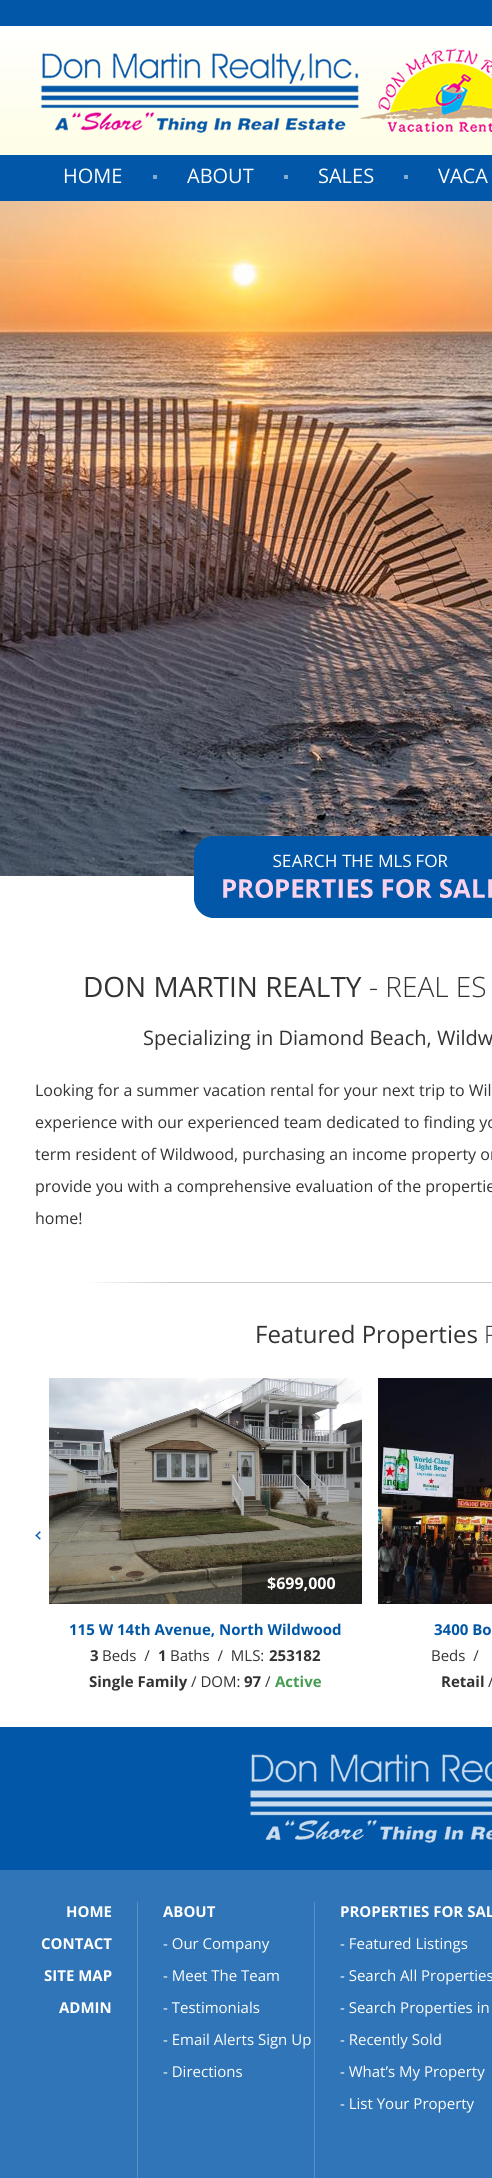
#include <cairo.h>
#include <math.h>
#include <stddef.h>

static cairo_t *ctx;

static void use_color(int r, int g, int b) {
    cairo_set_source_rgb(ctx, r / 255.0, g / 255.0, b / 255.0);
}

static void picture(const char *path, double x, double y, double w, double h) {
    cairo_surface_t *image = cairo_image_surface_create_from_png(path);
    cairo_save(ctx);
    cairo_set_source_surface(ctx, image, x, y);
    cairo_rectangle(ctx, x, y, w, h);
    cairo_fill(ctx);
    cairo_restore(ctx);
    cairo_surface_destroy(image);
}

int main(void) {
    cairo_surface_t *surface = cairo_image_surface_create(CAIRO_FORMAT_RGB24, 492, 2178);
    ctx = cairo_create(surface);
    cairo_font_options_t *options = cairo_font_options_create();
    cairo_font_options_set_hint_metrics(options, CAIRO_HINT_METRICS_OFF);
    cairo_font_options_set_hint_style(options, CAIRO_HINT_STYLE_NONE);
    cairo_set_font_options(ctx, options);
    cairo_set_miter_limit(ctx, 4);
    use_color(255, 255, 255);
    cairo_paint(ctx);
    use_color(2, 87, 168);
    cairo_rectangle(ctx, 0, 0, 492, 26);
    cairo_fill(ctx);
    cairo_rectangle(ctx, 0, 155, 492, 46);
    cairo_fill(ctx);
    picture("img1.png", 0, 26, 492, 129);
    picture("img2.png", 41, 48, 451, 85);
    cairo_select_font_face(ctx, "Open Sans", CAIRO_FONT_SLANT_NORMAL, CAIRO_FONT_WEIGHT_NORMAL);
    cairo_set_font_size(ctx, 20);
    use_color(255, 255, 255);
    cairo_move_to(ctx, 63, 183);
    cairo_show_text(ctx, "HOME");
    use_color(129, 171, 212);
    cairo_rectangle(ctx, 153, 175, 4, 4);
    cairo_fill(ctx);
    use_color(255, 255, 255);
    cairo_move_to(ctx, 187, 183);
    cairo_show_text(ctx, "ABOUT");
    use_color(129, 171, 212);
    cairo_rectangle(ctx, 284, 175, 4, 4);
    cairo_fill(ctx);
    use_color(255, 255, 255);
    cairo_move_to(ctx, 318, 183);
    cairo_show_text(ctx, "SALES");
    use_color(129, 171, 212);
    cairo_rectangle(ctx, 404, 175, 4, 4);
    cairo_fill(ctx);
    use_color(255, 255, 255);
    cairo_move_to(ctx, 438, 183);
    cairo_show_text(ctx, "VACA");
    picture("img3.png", 0, 201, 492, 675);
    picture("img4.png", 194, 836, 298, 82);
    cairo_set_font_size(ctx, 28);
    use_color(51, 51, 51);
    cairo_move_to(ctx, 83, 997);
    cairo_show_text(ctx, "DON MARTIN REALTY");
    cairo_select_font_face(ctx, "Open Sans Light", CAIRO_FONT_SLANT_NORMAL, CAIRO_FONT_WEIGHT_NORMAL);
    cairo_move_to(ctx, 369, 997);
    cairo_show_text(ctx, "- REAL ES");
    cairo_select_font_face(ctx, "Open Sans", CAIRO_FONT_SLANT_NORMAL, CAIRO_FONT_WEIGHT_NORMAL);
    cairo_set_font_size(ctx, 20);
    cairo_move_to(ctx, 143, 1045);
    cairo_show_text(ctx, "Specializing in Diamond Beach, Wildw");
    cairo_set_font_size(ctx, 16);
    cairo_move_to(ctx, 35, 1096);
    cairo_show_text(ctx, "Looking for a summer vacation rental for your next trip to Wil");
    cairo_move_to(ctx, 35, 1128);
    cairo_show_text(ctx, "experience with our experienced team dedicated to finding yo");
    cairo_move_to(ctx, 35, 1160);
    cairo_show_text(ctx, "term resident of Wildwood, purchasing an income property or");
    cairo_move_to(ctx, 35, 1192);
    cairo_show_text(ctx, "provide you with a comprehensive evaluation of the propertie");
    cairo_move_to(ctx, 35, 1224);
    cairo_show_text(ctx, "home!");
    picture("img5.png", 91, 1282, 401, 1);
    cairo_set_font_size(ctx, 24);
    cairo_move_to(ctx, 255, 1343);
    cairo_show_text(ctx, "Featured Properties");
    cairo_select_font_face(ctx, "Open Sans Light", CAIRO_FONT_SLANT_NORMAL, CAIRO_FONT_WEIGHT_NORMAL);
    cairo_move_to(ctx, 484, 1343);
    cairo_show_text(ctx, "P");
    picture("img6.png", 35, 1531, 6, 9);
    picture("img7.png", 49, 1378, 313, 226);
    cairo_set_source_rgba(ctx, 0, 0, 0, 0.5);
    cairo_rectangle(ctx, 242, 1562, 120, 42);
    cairo_fill(ctx);
    cairo_select_font_face(ctx, "Open Sans", CAIRO_FONT_SLANT_NORMAL, CAIRO_FONT_WEIGHT_BOLD);
    cairo_set_font_size(ctx, 16);
    use_color(255, 255, 255);
    cairo_move_to(ctx, 267, 1589);
    cairo_show_text(ctx, "$699,000");
    cairo_set_font_size(ctx, 15);
    use_color(1, 87, 167);
    cairo_move_to(ctx, 69, 1635);
    cairo_show_text(ctx, "115 W 14th Avenue, North Wildwood");
    use_color(51, 51, 51);
    cairo_move_to(ctx, 90, 1661);
    cairo_show_text(ctx, "3");
    cairo_select_font_face(ctx, "Open Sans", CAIRO_FONT_SLANT_NORMAL, CAIRO_FONT_WEIGHT_NORMAL);
    cairo_move_to(ctx, 102, 1661);
    cairo_show_text(ctx, "Beds  /");
    cairo_select_font_face(ctx, "Open Sans", CAIRO_FONT_SLANT_NORMAL, CAIRO_FONT_WEIGHT_BOLD);
    cairo_move_to(ctx, 158, 1661);
    cairo_show_text(ctx, "1");
    cairo_select_font_face(ctx, "Open Sans", CAIRO_FONT_SLANT_NORMAL, CAIRO_FONT_WEIGHT_NORMAL);
    cairo_move_to(ctx, 170, 1661);
    cairo_show_text(ctx, "Baths  /  MLS:");
    cairo_select_font_face(ctx, "Open Sans", CAIRO_FONT_SLANT_NORMAL, CAIRO_FONT_WEIGHT_BOLD);
    cairo_move_to(ctx, 269, 1661);
    cairo_show_text(ctx, "253182");
    cairo_move_to(ctx, 89, 1687);
    cairo_show_text(ctx, "Single Family");
    cairo_select_font_face(ctx, "Open Sans", CAIRO_FONT_SLANT_NORMAL, CAIRO_FONT_WEIGHT_NORMAL);
    cairo_move_to(ctx, 191, 1687);
    cairo_show_text(ctx, "/ DOM:");
    cairo_select_font_face(ctx, "Open Sans", CAIRO_FONT_SLANT_NORMAL, CAIRO_FONT_WEIGHT_BOLD);
    cairo_move_to(ctx, 244, 1687);
    cairo_show_text(ctx, "97");
    cairo_select_font_face(ctx, "Open Sans", CAIRO_FONT_SLANT_NORMAL, CAIRO_FONT_WEIGHT_NORMAL);
    cairo_move_to(ctx, 265, 1687);
    cairo_show_text(ctx, "/");
    cairo_select_font_face(ctx, "Open Sans", CAIRO_FONT_SLANT_NORMAL, CAIRO_FONT_WEIGHT_BOLD);
    use_color(70, 157, 82);
    cairo_move_to(ctx, 275, 1687);
    cairo_show_text(ctx, "Active");
    picture("img8.png", 378, 1378, 114, 226);
    use_color(1, 87, 167);
    cairo_move_to(ctx, 434, 1635);
    cairo_show_text(ctx, "3400 Bo");
    cairo_select_font_face(ctx, "Open Sans", CAIRO_FONT_SLANT_NORMAL, CAIRO_FONT_WEIGHT_NORMAL);
    use_color(51, 51, 51);
    cairo_move_to(ctx, 431, 1661);
    cairo_show_text(ctx, "Beds  /");
    cairo_select_font_face(ctx, "Open Sans", CAIRO_FONT_SLANT_NORMAL, CAIRO_FONT_WEIGHT_BOLD);
    cairo_move_to(ctx, 441, 1687);
    cairo_show_text(ctx, "Retail");
    cairo_select_font_face(ctx, "Open Sans", CAIRO_FONT_SLANT_NORMAL, CAIRO_FONT_WEIGHT_NORMAL);
    cairo_move_to(ctx, 488, 1687);
    cairo_show_text(ctx, "/");
    use_color(2, 87, 168);
    cairo_rectangle(ctx, 0, 1727, 492, 143);
    cairo_fill(ctx);
    picture("img9.png", 250, 1754, 242, 89);
    use_color(48, 117, 184);
    cairo_rectangle(ctx, 0, 1870, 492, 308);
    cairo_fill(ctx);
    cairo_select_font_face(ctx, "Open Sans", CAIRO_FONT_SLANT_NORMAL, CAIRO_FONT_WEIGHT_BOLD);
    use_color(255, 255, 255);
    cairo_move_to(ctx, 66, 1917);
    cairo_show_text(ctx, "HOME");
    cairo_move_to(ctx, 41, 1949);
    cairo_show_text(ctx, "CONTACT");
    cairo_move_to(ctx, 44, 1981);
    cairo_show_text(ctx, "SITE MAP");
    cairo_move_to(ctx, 59, 2013);
    cairo_show_text(ctx, "ADMIN");
    use_color(89, 145, 198);
    cairo_rectangle(ctx, 137, 1902, 1, 276);
    cairo_fill(ctx);
    use_color(255, 255, 255);
    cairo_move_to(ctx, 163, 1917);
    cairo_show_text(ctx, "ABOUT");
    cairo_select_font_face(ctx, "Open Sans", CAIRO_FONT_SLANT_NORMAL, CAIRO_FONT_WEIGHT_NORMAL);
    cairo_move_to(ctx, 163, 1949);
    cairo_show_text(ctx, "- Our Company");
    cairo_move_to(ctx, 163, 1981);
    cairo_show_text(ctx, "- Meet The Team");
    cairo_move_to(ctx, 163, 2013);
    cairo_show_text(ctx, "- Testimonials");
    cairo_move_to(ctx, 163, 2045);
    cairo_show_text(ctx, "- Email Alerts Sign Up");
    cairo_move_to(ctx, 163, 2077);
    cairo_show_text(ctx, "- Directions");
    use_color(89, 145, 198);
    cairo_rectangle(ctx, 314, 1902, 1, 276);
    cairo_fill(ctx);
    cairo_select_font_face(ctx, "Open Sans", CAIRO_FONT_SLANT_NORMAL, CAIRO_FONT_WEIGHT_BOLD);
    use_color(255, 255, 255);
    cairo_move_to(ctx, 340, 1917);
    cairo_show_text(ctx, "PROPERTIES FOR SAL");
    cairo_select_font_face(ctx, "Open Sans", CAIRO_FONT_SLANT_NORMAL, CAIRO_FONT_WEIGHT_NORMAL);
    cairo_move_to(ctx, 340, 1949);
    cairo_show_text(ctx, "- Featured Listings");
    cairo_move_to(ctx, 340, 1981);
    cairo_show_text(ctx, "- Search All Properties");
    cairo_move_to(ctx, 340, 2013);
    cairo_show_text(ctx, "- Search Properties in");
    cairo_move_to(ctx, 340, 2045);
    cairo_show_text(ctx, "- Recently Sold");
    cairo_move_to(ctx, 340, 2077);
    cairo_show_text(ctx, "- What’s My Property");
    cairo_move_to(ctx, 340, 2109);
    cairo_show_text(ctx, "- List Your Property");
    cairo_surface_write_to_png(surface, "result.png");
    cairo_font_options_destroy(options);
    cairo_destroy(ctx);
    cairo_surface_destroy(surface);
    return 0;
}
